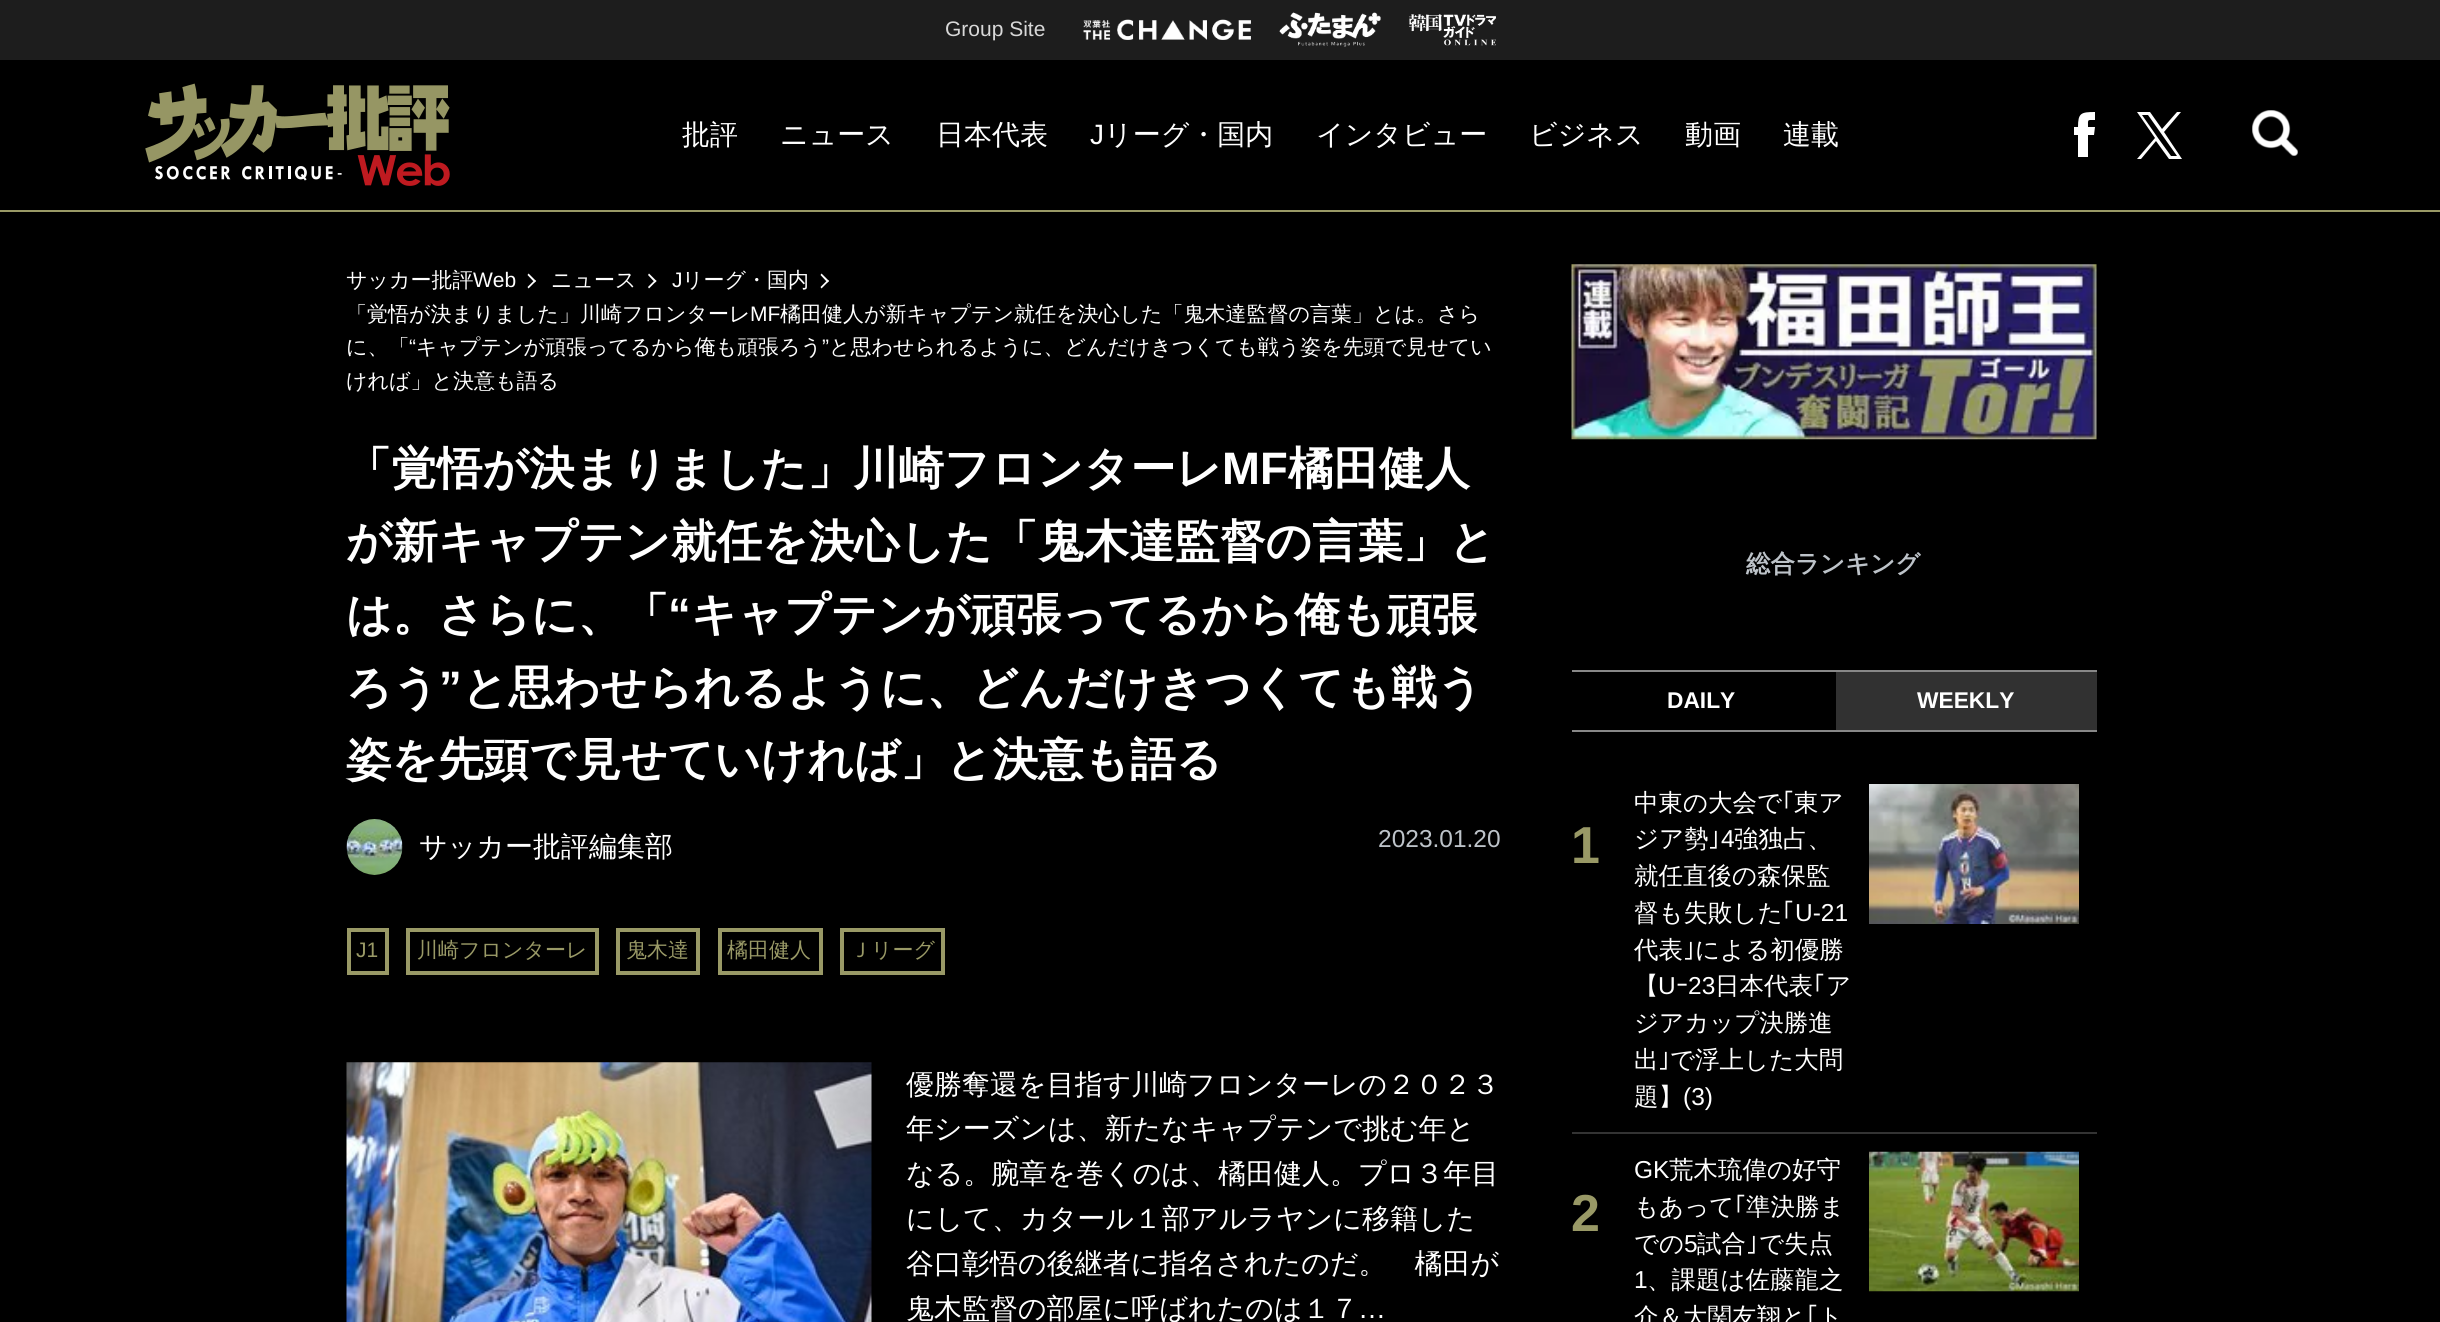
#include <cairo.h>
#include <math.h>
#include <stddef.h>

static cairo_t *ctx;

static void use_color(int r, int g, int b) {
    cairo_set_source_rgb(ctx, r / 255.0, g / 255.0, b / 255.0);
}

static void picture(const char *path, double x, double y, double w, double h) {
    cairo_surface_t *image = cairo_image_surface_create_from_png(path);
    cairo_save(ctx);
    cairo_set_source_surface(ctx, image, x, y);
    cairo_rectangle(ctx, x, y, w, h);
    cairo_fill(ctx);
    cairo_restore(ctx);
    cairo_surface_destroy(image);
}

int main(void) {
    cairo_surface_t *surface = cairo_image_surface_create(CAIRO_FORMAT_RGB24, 2440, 1322);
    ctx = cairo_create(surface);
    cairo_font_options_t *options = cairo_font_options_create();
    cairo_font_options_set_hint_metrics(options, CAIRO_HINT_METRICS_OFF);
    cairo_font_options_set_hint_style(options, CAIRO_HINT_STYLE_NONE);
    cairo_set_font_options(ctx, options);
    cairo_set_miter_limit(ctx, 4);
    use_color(0, 0, 0);
    cairo_paint(ctx);
    use_color(153, 153, 102);
    cairo_rectangle(ctx, 0, 210, 2440, 2);
    cairo_fill(ctx);
    use_color(29, 29, 29);
    cairo_rectangle(ctx, 0, 0, 2440, 60);
    cairo_fill(ctx);
    cairo_select_font_face(ctx, "Liberation Sans", CAIRO_FONT_SLANT_NORMAL, CAIRO_FONT_WEIGHT_NORMAL);
    cairo_set_font_size(ctx, 21);
    use_color(216, 216, 216);
    cairo_move_to(ctx, 945, 36);
    cairo_show_text(ctx, "Group Site");
    picture("img1.png", 1083, 19, 168, 21);
    picture("img2.png", 1279, 12, 102, 35);
    picture("img3.png", 1409, 14, 87, 32);
    picture("img4.png", 145, 83, 305, 103);
    cairo_select_font_face(ctx, "WenQuanYi Zen Hei Medium", CAIRO_FONT_SLANT_NORMAL, CAIRO_FONT_WEIGHT_NORMAL);
    cairo_set_font_size(ctx, 28);
    use_color(255, 255, 255);
    cairo_move_to(ctx, 682, 144);
    cairo_show_text(ctx, "批評");
    cairo_move_to(ctx, 780, 144);
    cairo_show_text(ctx, "ニュース");
    cairo_move_to(ctx, 936, 144);
    cairo_show_text(ctx, "日本代表");
    cairo_select_font_face(ctx, "Liberation Sans", CAIRO_FONT_SLANT_NORMAL, CAIRO_FONT_WEIGHT_NORMAL);
    cairo_move_to(ctx, 1090, 144);
    cairo_show_text(ctx, "J");
    cairo_select_font_face(ctx, "WenQuanYi Zen Hei Medium", CAIRO_FONT_SLANT_NORMAL, CAIRO_FONT_WEIGHT_NORMAL);
    cairo_move_to(ctx, 1104, 144);
    cairo_show_text(ctx, "リーグ・国内");
    cairo_move_to(ctx, 1316, 144);
    cairo_show_text(ctx, "インタビュー");
    cairo_move_to(ctx, 1529, 144);
    cairo_show_text(ctx, "ビジネス");
    cairo_move_to(ctx, 1685, 144);
    cairo_show_text(ctx, "動画");
    cairo_move_to(ctx, 1783, 144);
    cairo_show_text(ctx, "連載");
    cairo_new_path(ctx);
    cairo_move_to(ctx, 2094, 135);
    cairo_line_to(ctx, 2088, 135);
    cairo_line_to(ctx, 2088, 157);
    cairo_line_to(ctx, 2078, 157);
    cairo_line_to(ctx, 2078, 135);
    cairo_line_to(ctx, 2074, 135);
    cairo_line_to(ctx, 2074, 127);
    cairo_line_to(ctx, 2078, 127);
    cairo_curve_to(ctx, 2078, 113, 2081, 112, 2095, 112);
    cairo_line_to(ctx, 2095, 120);
    cairo_curve_to(ctx, 2087, 120, 2088, 119, 2088, 127);
    cairo_line_to(ctx, 2095, 127);
    cairo_close_path(ctx);
    cairo_fill(ctx);
    cairo_new_path(ctx);
    cairo_move_to(ctx, 2164, 132);
    cairo_line_to(ctx, 2181, 112);
    cairo_line_to(ctx, 2177, 112);
    cairo_line_to(ctx, 2162, 129);
    cairo_line_to(ctx, 2150, 112);
    cairo_line_to(ctx, 2137, 112);
    cairo_line_to(ctx, 2155, 138);
    cairo_line_to(ctx, 2137, 159);
    cairo_line_to(ctx, 2141, 159);
    cairo_line_to(ctx, 2156, 141);
    cairo_line_to(ctx, 2169, 159);
    cairo_line_to(ctx, 2182, 159);
    cairo_close_path(ctx);
    cairo_move_to(ctx, 2158, 138);
    cairo_line_to(ctx, 2142, 115);
    cairo_line_to(ctx, 2148, 115);
    cairo_line_to(ctx, 2177, 156);
    cairo_line_to(ctx, 2171, 156);
    cairo_close_path(ctx);
    cairo_fill(ctx);
    picture("img5.png", 2252, 110, 46, 46);
    cairo_set_font_size(ctx, 21);
    cairo_move_to(ctx, 346, 287);
    cairo_show_text(ctx, "サッカー批評");
    cairo_select_font_face(ctx, "Liberation Sans", CAIRO_FONT_SLANT_NORMAL, CAIRO_FONT_WEIGHT_NORMAL);
    cairo_move_to(ctx, 473, 287);
    cairo_show_text(ctx, "Web");
    cairo_new_path(ctx);
    cairo_move_to(ctx, 528.5, 273.5);
    cairo_line_to(ctx, 536, 281);
    cairo_line_to(ctx, 534.5, 282.5);
    cairo_line_to(ctx, 527.5, 275);
    cairo_close_path(ctx);
    cairo_fill(ctx);
    cairo_new_path(ctx);
    cairo_move_to(ctx, 534.5, 280);
    cairo_line_to(ctx, 536, 281);
    cairo_line_to(ctx, 528.5, 288.5);
    cairo_line_to(ctx, 527.5, 287);
    cairo_close_path(ctx);
    cairo_fill(ctx);
    cairo_select_font_face(ctx, "WenQuanYi Zen Hei Medium", CAIRO_FONT_SLANT_NORMAL, CAIRO_FONT_WEIGHT_NORMAL);
    cairo_move_to(ctx, 551, 287);
    cairo_show_text(ctx, "ニュース");
    cairo_new_path(ctx);
    cairo_move_to(ctx, 649, 273.5);
    cairo_line_to(ctx, 656.5, 281);
    cairo_line_to(ctx, 655, 282.5);
    cairo_line_to(ctx, 648, 275);
    cairo_close_path(ctx);
    cairo_fill(ctx);
    cairo_new_path(ctx);
    cairo_move_to(ctx, 655, 280);
    cairo_line_to(ctx, 656.5, 281);
    cairo_line_to(ctx, 649, 288.5);
    cairo_line_to(ctx, 648, 287);
    cairo_close_path(ctx);
    cairo_fill(ctx);
    cairo_select_font_face(ctx, "Liberation Sans", CAIRO_FONT_SLANT_NORMAL, CAIRO_FONT_WEIGHT_NORMAL);
    cairo_move_to(ctx, 672, 287);
    cairo_show_text(ctx, "J");
    cairo_select_font_face(ctx, "WenQuanYi Zen Hei Medium", CAIRO_FONT_SLANT_NORMAL, CAIRO_FONT_WEIGHT_NORMAL);
    cairo_move_to(ctx, 682, 287);
    cairo_show_text(ctx, "リーグ・国内");
    cairo_new_path(ctx);
    cairo_move_to(ctx, 821.5, 273.5);
    cairo_line_to(ctx, 829, 281);
    cairo_line_to(ctx, 827.5, 282.5);
    cairo_line_to(ctx, 820.5, 275);
    cairo_close_path(ctx);
    cairo_fill(ctx);
    cairo_new_path(ctx);
    cairo_move_to(ctx, 827.5, 280);
    cairo_line_to(ctx, 829, 281);
    cairo_line_to(ctx, 821.5, 288.5);
    cairo_line_to(ctx, 820.5, 287);
    cairo_close_path(ctx);
    cairo_fill(ctx);
    cairo_move_to(ctx, 346, 321);
    cairo_show_text(ctx, "「覚悟が決まりました」川崎フロンターレ");
    cairo_select_font_face(ctx, "Liberation Sans", CAIRO_FONT_SLANT_NORMAL, CAIRO_FONT_WEIGHT_NORMAL);
    cairo_move_to(ctx, 750, 321);
    cairo_show_text(ctx, "MF");
    cairo_select_font_face(ctx, "WenQuanYi Zen Hei Medium", CAIRO_FONT_SLANT_NORMAL, CAIRO_FONT_WEIGHT_NORMAL);
    cairo_move_to(ctx, 780, 321);
    cairo_show_text(ctx, "橘田健人が新キャプテン就任を決心した「鬼木達監督の言葉」とは。さら");
    cairo_move_to(ctx, 346, 354);
    cairo_show_text(ctx, "に、「");
    cairo_select_font_face(ctx, "Liberation Sans", CAIRO_FONT_SLANT_NORMAL, CAIRO_FONT_WEIGHT_NORMAL);
    cairo_move_to(ctx, 409, 354);
    cairo_show_text(ctx, "“");
    cairo_select_font_face(ctx, "WenQuanYi Zen Hei Medium", CAIRO_FONT_SLANT_NORMAL, CAIRO_FONT_WEIGHT_NORMAL);
    cairo_move_to(ctx, 416, 354);
    cairo_show_text(ctx, "キャプテンが頑張ってるから俺も頑張ろう");
    cairo_select_font_face(ctx, "Liberation Sans", CAIRO_FONT_SLANT_NORMAL, CAIRO_FONT_WEIGHT_NORMAL);
    cairo_move_to(ctx, 822, 354);
    cairo_show_text(ctx, "”");
    cairo_select_font_face(ctx, "WenQuanYi Zen Hei Medium", CAIRO_FONT_SLANT_NORMAL, CAIRO_FONT_WEIGHT_NORMAL);
    cairo_move_to(ctx, 829, 354);
    cairo_show_text(ctx, "と思わせられるように、どんだけきつくても戦う姿を先頭で見せてい");
    cairo_move_to(ctx, 346, 388);
    cairo_show_text(ctx, "ければ」と決意も語る");
    cairo_select_font_face(ctx, "WenQuanYi Zen Hei", CAIRO_FONT_SLANT_NORMAL, CAIRO_FONT_WEIGHT_BOLD);
    cairo_set_font_size(ctx, 45.5);
    cairo_move_to(ctx, 346, 484);
    cairo_show_text(ctx, "「覚悟が決まりました」川崎フロンターレ");
    cairo_select_font_face(ctx, "Liberation Sans", CAIRO_FONT_SLANT_NORMAL, CAIRO_FONT_WEIGHT_BOLD);
    cairo_move_to(ctx, 1222, 484);
    cairo_show_text(ctx, "MF");
    cairo_select_font_face(ctx, "WenQuanYi Zen Hei", CAIRO_FONT_SLANT_NORMAL, CAIRO_FONT_WEIGHT_BOLD);
    cairo_move_to(ctx, 1288, 484);
    cairo_show_text(ctx, "橘田健人");
    cairo_move_to(ctx, 346, 557);
    cairo_show_text(ctx, "が新キャプテン就任を決心した「鬼木達監督の言葉」と");
    cairo_move_to(ctx, 346, 630);
    cairo_show_text(ctx, "は。さらに、「");
    cairo_select_font_face(ctx, "Liberation Sans", CAIRO_FONT_SLANT_NORMAL, CAIRO_FONT_WEIGHT_BOLD);
    cairo_move_to(ctx, 668, 630);
    cairo_show_text(ctx, "“");
    cairo_select_font_face(ctx, "WenQuanYi Zen Hei", CAIRO_FONT_SLANT_NORMAL, CAIRO_FONT_WEIGHT_BOLD);
    cairo_move_to(ctx, 691, 630);
    cairo_show_text(ctx, "キャプテンが頑張ってるから俺も頑張");
    cairo_move_to(ctx, 346, 703);
    cairo_show_text(ctx, "ろう");
    cairo_select_font_face(ctx, "Liberation Sans", CAIRO_FONT_SLANT_NORMAL, CAIRO_FONT_WEIGHT_BOLD);
    cairo_move_to(ctx, 439, 703);
    cairo_show_text(ctx, "”");
    cairo_select_font_face(ctx, "WenQuanYi Zen Hei", CAIRO_FONT_SLANT_NORMAL, CAIRO_FONT_WEIGHT_BOLD);
    cairo_move_to(ctx, 462, 703);
    cairo_show_text(ctx, "と思わせられるように、どんだけきつくても戦う");
    cairo_move_to(ctx, 346, 775);
    cairo_show_text(ctx, "姿を先頭で見せていければ」と決意も語る");
    picture("img6.png", 346, 819, 57, 56);
    cairo_select_font_face(ctx, "WenQuanYi Zen Hei Medium", CAIRO_FONT_SLANT_NORMAL, CAIRO_FONT_WEIGHT_NORMAL);
    cairo_set_font_size(ctx, 28);
    cairo_move_to(ctx, 419, 856);
    cairo_show_text(ctx, "サッカー批評編集部");
    cairo_rectangle(ctx, 349, 930, 38, 43);
    use_color(153, 153, 102);
    cairo_set_line_width(ctx, 4);
    cairo_stroke(ctx);
    cairo_select_font_face(ctx, "Liberation Sans", CAIRO_FONT_SLANT_NORMAL, CAIRO_FONT_WEIGHT_NORMAL);
    cairo_set_font_size(ctx, 21);
    cairo_move_to(ctx, 356, 957);
    cairo_show_text(ctx, "J1");
    cairo_rectangle(ctx, 408, 930, 189, 43);
    cairo_stroke(ctx);
    cairo_select_font_face(ctx, "WenQuanYi Zen Hei Medium", CAIRO_FONT_SLANT_NORMAL, CAIRO_FONT_WEIGHT_NORMAL);
    cairo_move_to(ctx, 417, 957);
    cairo_show_text(ctx, "川崎フロンターレ");
    cairo_rectangle(ctx, 618, 930, 80, 43);
    cairo_stroke(ctx);
    cairo_move_to(ctx, 626, 957);
    cairo_show_text(ctx, "鬼木達");
    cairo_rectangle(ctx, 720, 930, 101, 43);
    cairo_stroke(ctx);
    cairo_move_to(ctx, 727, 957);
    cairo_show_text(ctx, "橘田健人");
    cairo_rectangle(ctx, 842, 930, 101, 43);
    cairo_stroke(ctx);
    cairo_move_to(ctx, 850, 957);
    cairo_show_text(ctx, "Ｊリーグ");
    cairo_select_font_face(ctx, "Liberation Sans", CAIRO_FONT_SLANT_NORMAL, CAIRO_FONT_WEIGHT_NORMAL);
    cairo_set_font_size(ctx, 24.5);
    use_color(189, 195, 201);
    cairo_move_to(ctx, 1378, 847);
    cairo_show_text(ctx, "2023.01.20");
    picture("img7.png", 346, 1062, 526, 260);
    cairo_select_font_face(ctx, "WenQuanYi Zen Hei Medium", CAIRO_FONT_SLANT_NORMAL, CAIRO_FONT_WEIGHT_NORMAL);
    cairo_set_font_size(ctx, 28);
    use_color(255, 255, 255);
    cairo_move_to(ctx, 906, 1094);
    cairo_show_text(ctx, "優勝奪還を目指す川崎フロンターレの２０２３");
    cairo_move_to(ctx, 906, 1138);
    cairo_show_text(ctx, "年シーズンは、新たなキャプテンで挑む年と");
    cairo_move_to(ctx, 906, 1183);
    cairo_show_text(ctx, "なる。腕章を巻くのは、橘田健人。プロ３年目");
    cairo_move_to(ctx, 906, 1228);
    cairo_show_text(ctx, "にして、カタール１部アルラヤンに移籍した");
    cairo_move_to(ctx, 906, 1273);
    cairo_show_text(ctx, "谷口彰悟の後継者に指名されたのだ。　橘田が");
    cairo_move_to(ctx, 906, 1318);
    cairo_show_text(ctx, "鬼木監督の部屋に呼ばれたのは１７");
    cairo_select_font_face(ctx, "Liberation Sans", CAIRO_FONT_SLANT_NORMAL, CAIRO_FONT_WEIGHT_NORMAL);
    cairo_move_to(ctx, 1358, 1318);
    cairo_show_text(ctx, "…");
    picture("img8.png", 1571, 264, 526, 176);
    cairo_select_font_face(ctx, "WenQuanYi Zen Hei", CAIRO_FONT_SLANT_NORMAL, CAIRO_FONT_WEIGHT_BOLD);
    cairo_set_font_size(ctx, 24.5);
    use_color(189, 195, 201);
    cairo_move_to(ctx, 1746, 572);
    cairo_show_text(ctx, "総合ランキング");
    use_color(136, 136, 136);
    cairo_rectangle(ctx, 1572, 670, 525, 2);
    cairo_fill(ctx);
    cairo_rectangle(ctx, 1572, 730, 525, 2);
    cairo_fill(ctx);
    cairo_select_font_face(ctx, "Liberation Sans", CAIRO_FONT_SLANT_NORMAL, CAIRO_FONT_WEIGHT_BOLD);
    cairo_set_font_size(ctx, 22.75);
    use_color(255, 255, 255);
    cairo_move_to(ctx, 1667, 708);
    cairo_show_text(ctx, "DAILY");
    use_color(49, 49, 49);
    cairo_rectangle(ctx, 1836, 672, 261, 58);
    cairo_fill(ctx);
    use_color(255, 255, 255);
    cairo_move_to(ctx, 1917, 708);
    cairo_show_text(ctx, "WEEKLY");
    use_color(51, 51, 51);
    cairo_rectangle(ctx, 1572, 1132, 525, 2);
    cairo_fill(ctx);
    cairo_set_font_size(ctx, 52);
    use_color(153, 153, 102);
    cairo_move_to(ctx, 1571, 863);
    cairo_show_text(ctx, "1");
    cairo_select_font_face(ctx, "WenQuanYi Zen Hei Medium", CAIRO_FONT_SLANT_NORMAL, CAIRO_FONT_WEIGHT_NORMAL);
    cairo_set_font_size(ctx, 24.5);
    use_color(255, 255, 255);
    cairo_move_to(ctx, 1634, 811);
    cairo_show_text(ctx, "中東の大会で");
    cairo_select_font_face(ctx, "IPAPGothic", CAIRO_FONT_SLANT_NORMAL, CAIRO_FONT_WEIGHT_NORMAL);
    cairo_move_to(ctx, 1782, 811);
    cairo_show_text(ctx, "｢");
    cairo_select_font_face(ctx, "WenQuanYi Zen Hei Medium", CAIRO_FONT_SLANT_NORMAL, CAIRO_FONT_WEIGHT_NORMAL);
    cairo_move_to(ctx, 1794, 811);
    cairo_show_text(ctx, "東ア");
    cairo_move_to(ctx, 1634, 847);
    cairo_show_text(ctx, "ジア勢");
    cairo_select_font_face(ctx, "IPAPGothic", CAIRO_FONT_SLANT_NORMAL, CAIRO_FONT_WEIGHT_NORMAL);
    cairo_move_to(ctx, 1708, 847);
    cairo_show_text(ctx, "｣");
    cairo_select_font_face(ctx, "Liberation Sans", CAIRO_FONT_SLANT_NORMAL, CAIRO_FONT_WEIGHT_NORMAL);
    cairo_move_to(ctx, 1721, 847);
    cairo_show_text(ctx, "4");
    cairo_select_font_face(ctx, "WenQuanYi Zen Hei Medium", CAIRO_FONT_SLANT_NORMAL, CAIRO_FONT_WEIGHT_NORMAL);
    cairo_move_to(ctx, 1734, 847);
    cairo_show_text(ctx, "強独占、");
    cairo_move_to(ctx, 1634, 884);
    cairo_show_text(ctx, "就任直後の森保監");
    cairo_move_to(ctx, 1634, 921);
    cairo_show_text(ctx, "督も失敗した");
    cairo_select_font_face(ctx, "IPAPGothic", CAIRO_FONT_SLANT_NORMAL, CAIRO_FONT_WEIGHT_NORMAL);
    cairo_move_to(ctx, 1782, 921);
    cairo_show_text(ctx, "｢");
    cairo_select_font_face(ctx, "Liberation Sans", CAIRO_FONT_SLANT_NORMAL, CAIRO_FONT_WEIGHT_NORMAL);
    cairo_move_to(ctx, 1795, 921);
    cairo_show_text(ctx, "U-21");
    cairo_select_font_face(ctx, "WenQuanYi Zen Hei Medium", CAIRO_FONT_SLANT_NORMAL, CAIRO_FONT_WEIGHT_NORMAL);
    cairo_move_to(ctx, 1634, 958);
    cairo_show_text(ctx, "代表");
    cairo_select_font_face(ctx, "IPAPGothic", CAIRO_FONT_SLANT_NORMAL, CAIRO_FONT_WEIGHT_NORMAL);
    cairo_move_to(ctx, 1683, 958);
    cairo_show_text(ctx, "｣");
    cairo_select_font_face(ctx, "WenQuanYi Zen Hei Medium", CAIRO_FONT_SLANT_NORMAL, CAIRO_FONT_WEIGHT_NORMAL);
    cairo_move_to(ctx, 1695, 958);
    cairo_show_text(ctx, "による初優勝");
    cairo_move_to(ctx, 1634, 994);
    cairo_show_text(ctx, "【");
    cairo_select_font_face(ctx, "Liberation Sans", CAIRO_FONT_SLANT_NORMAL, CAIRO_FONT_WEIGHT_NORMAL);
    cairo_move_to(ctx, 1658, 994);
    cairo_show_text(ctx, "U");
    cairo_select_font_face(ctx, "IPAPGothic", CAIRO_FONT_SLANT_NORMAL, CAIRO_FONT_WEIGHT_NORMAL);
    cairo_move_to(ctx, 1676, 994);
    cairo_show_text(ctx, "ｰ");
    cairo_select_font_face(ctx, "Liberation Sans", CAIRO_FONT_SLANT_NORMAL, CAIRO_FONT_WEIGHT_NORMAL);
    cairo_move_to(ctx, 1688, 994);
    cairo_show_text(ctx, "23");
    cairo_select_font_face(ctx, "WenQuanYi Zen Hei Medium", CAIRO_FONT_SLANT_NORMAL, CAIRO_FONT_WEIGHT_NORMAL);
    cairo_move_to(ctx, 1715, 994);
    cairo_show_text(ctx, "日本代表");
    cairo_select_font_face(ctx, "IPAPGothic", CAIRO_FONT_SLANT_NORMAL, CAIRO_FONT_WEIGHT_NORMAL);
    cairo_move_to(ctx, 1813, 994);
    cairo_show_text(ctx, "｢");
    cairo_select_font_face(ctx, "WenQuanYi Zen Hei Medium", CAIRO_FONT_SLANT_NORMAL, CAIRO_FONT_WEIGHT_NORMAL);
    cairo_move_to(ctx, 1826, 994);
    cairo_show_text(ctx, "ア");
    cairo_move_to(ctx, 1634, 1031);
    cairo_show_text(ctx, "ジアカップ決勝進");
    cairo_move_to(ctx, 1634, 1068);
    cairo_show_text(ctx, "出");
    cairo_select_font_face(ctx, "IPAPGothic", CAIRO_FONT_SLANT_NORMAL, CAIRO_FONT_WEIGHT_NORMAL);
    cairo_move_to(ctx, 1658, 1068);
    cairo_show_text(ctx, "｣");
    cairo_select_font_face(ctx, "WenQuanYi Zen Hei Medium", CAIRO_FONT_SLANT_NORMAL, CAIRO_FONT_WEIGHT_NORMAL);
    cairo_move_to(ctx, 1670, 1068);
    cairo_show_text(ctx, "で浮上した大問");
    cairo_move_to(ctx, 1634, 1105);
    cairo_show_text(ctx, "題】");
    cairo_select_font_face(ctx, "Liberation Sans", CAIRO_FONT_SLANT_NORMAL, CAIRO_FONT_WEIGHT_NORMAL);
    cairo_move_to(ctx, 1683, 1105);
    cairo_show_text(ctx, "(3)");
    picture("img9.png", 1869, 784, 210, 140);
    cairo_select_font_face(ctx, "Liberation Sans", CAIRO_FONT_SLANT_NORMAL, CAIRO_FONT_WEIGHT_BOLD);
    cairo_set_font_size(ctx, 52);
    use_color(153, 153, 102);
    cairo_move_to(ctx, 1571, 1231);
    cairo_show_text(ctx, "2");
    cairo_select_font_face(ctx, "Liberation Sans", CAIRO_FONT_SLANT_NORMAL, CAIRO_FONT_WEIGHT_NORMAL);
    cairo_set_font_size(ctx, 24.5);
    use_color(255, 255, 255);
    cairo_move_to(ctx, 1634, 1178);
    cairo_show_text(ctx, "GK");
    cairo_select_font_face(ctx, "WenQuanYi Zen Hei Medium", CAIRO_FONT_SLANT_NORMAL, CAIRO_FONT_WEIGHT_NORMAL);
    cairo_move_to(ctx, 1669, 1178);
    cairo_show_text(ctx, "荒木琉偉の好守");
    cairo_move_to(ctx, 1634, 1215);
    cairo_show_text(ctx, "もあって");
    cairo_select_font_face(ctx, "IPAPGothic", CAIRO_FONT_SLANT_NORMAL, CAIRO_FONT_WEIGHT_NORMAL);
    cairo_move_to(ctx, 1734, 1215);
    cairo_show_text(ctx, "｢");
    cairo_select_font_face(ctx, "WenQuanYi Zen Hei Medium", CAIRO_FONT_SLANT_NORMAL, CAIRO_FONT_WEIGHT_NORMAL);
    cairo_move_to(ctx, 1746, 1215);
    cairo_show_text(ctx, "準決勝ま");
    cairo_move_to(ctx, 1634, 1252);
    cairo_show_text(ctx, "での");
    cairo_select_font_face(ctx, "Liberation Sans", CAIRO_FONT_SLANT_NORMAL, CAIRO_FONT_WEIGHT_NORMAL);
    cairo_move_to(ctx, 1684, 1252);
    cairo_show_text(ctx, "5");
    cairo_select_font_face(ctx, "WenQuanYi Zen Hei Medium", CAIRO_FONT_SLANT_NORMAL, CAIRO_FONT_WEIGHT_NORMAL);
    cairo_move_to(ctx, 1697, 1252);
    cairo_show_text(ctx, "試合");
    cairo_select_font_face(ctx, "IPAPGothic", CAIRO_FONT_SLANT_NORMAL, CAIRO_FONT_WEIGHT_NORMAL);
    cairo_move_to(ctx, 1746, 1252);
    cairo_show_text(ctx, "｣");
    cairo_select_font_face(ctx, "WenQuanYi Zen Hei Medium", CAIRO_FONT_SLANT_NORMAL, CAIRO_FONT_WEIGHT_NORMAL);
    cairo_move_to(ctx, 1759, 1252);
    cairo_show_text(ctx, "で失点");
    cairo_select_font_face(ctx, "Liberation Sans", CAIRO_FONT_SLANT_NORMAL, CAIRO_FONT_WEIGHT_NORMAL);
    cairo_move_to(ctx, 1634, 1288);
    cairo_show_text(ctx, "1");
    cairo_select_font_face(ctx, "WenQuanYi Zen Hei Medium", CAIRO_FONT_SLANT_NORMAL, CAIRO_FONT_WEIGHT_NORMAL);
    cairo_move_to(ctx, 1647, 1288);
    cairo_show_text(ctx, "、課題は佐藤龍之");
    cairo_move_to(ctx, 1634, 1325);
    cairo_show_text(ctx, "介＆大関友翔と");
    cairo_select_font_face(ctx, "IPAPGothic", CAIRO_FONT_SLANT_NORMAL, CAIRO_FONT_WEIGHT_NORMAL);
    cairo_move_to(ctx, 1806, 1325);
    cairo_show_text(ctx, "｢");
    cairo_select_font_face(ctx, "WenQuanYi Zen Hei Medium", CAIRO_FONT_SLANT_NORMAL, CAIRO_FONT_WEIGHT_NORMAL);
    cairo_move_to(ctx, 1818, 1325);
    cairo_show_text(ctx, "ト");
    picture("img10.png", 1869, 1151, 210, 141);
    cairo_surface_write_to_png(surface, "result.png");
    cairo_font_options_destroy(options);
    cairo_destroy(ctx);
    cairo_surface_destroy(surface);
    return 0;
}
